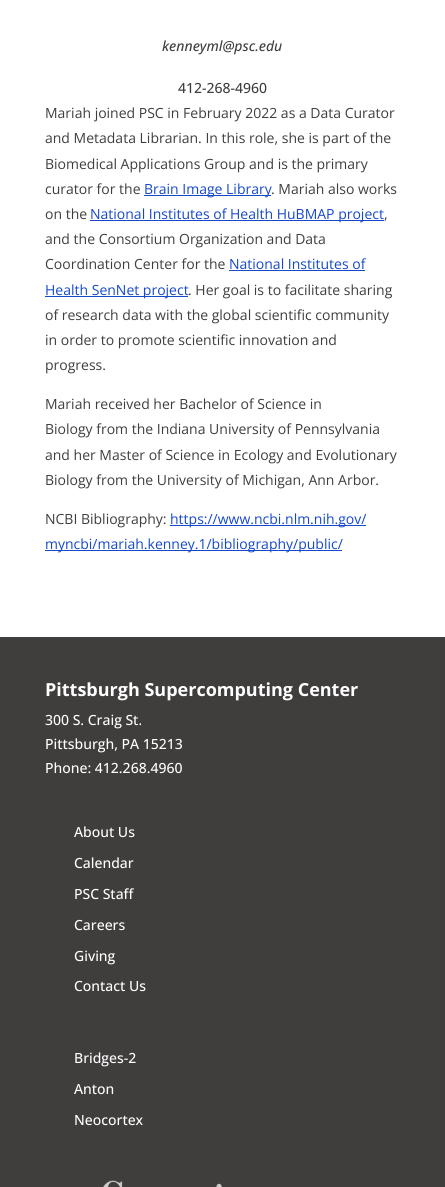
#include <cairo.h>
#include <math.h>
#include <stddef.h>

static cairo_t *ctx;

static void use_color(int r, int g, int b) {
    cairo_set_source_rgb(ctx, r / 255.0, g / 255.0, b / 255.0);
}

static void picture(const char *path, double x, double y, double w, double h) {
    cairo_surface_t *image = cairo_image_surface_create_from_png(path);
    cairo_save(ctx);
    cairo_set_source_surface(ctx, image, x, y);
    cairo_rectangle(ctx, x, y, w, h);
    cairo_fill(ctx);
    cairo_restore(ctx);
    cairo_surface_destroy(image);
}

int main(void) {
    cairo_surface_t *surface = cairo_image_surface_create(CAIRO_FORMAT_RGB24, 445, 1187);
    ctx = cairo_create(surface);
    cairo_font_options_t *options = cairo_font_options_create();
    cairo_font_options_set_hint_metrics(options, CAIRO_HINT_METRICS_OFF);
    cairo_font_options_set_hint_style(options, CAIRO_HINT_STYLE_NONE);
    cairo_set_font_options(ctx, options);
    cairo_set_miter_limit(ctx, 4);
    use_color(255, 255, 255);
    cairo_paint(ctx);
    cairo_select_font_face(ctx, "Open Sans Medium", CAIRO_FONT_SLANT_ITALIC, CAIRO_FONT_WEIGHT_NORMAL);
    cairo_set_font_size(ctx, 14);
    use_color(64, 62, 61);
    cairo_move_to(ctx, 162, 51);
    cairo_show_text(ctx, "kenneyml@psc.edu");
    cairo_select_font_face(ctx, "Open Sans Medium", CAIRO_FONT_SLANT_NORMAL, CAIRO_FONT_WEIGHT_NORMAL);
    cairo_move_to(ctx, 178, 93);
    cairo_show_text(ctx, "412-268-4960");
    cairo_select_font_face(ctx, "Open Sans", CAIRO_FONT_SLANT_NORMAL, CAIRO_FONT_WEIGHT_NORMAL);
    cairo_move_to(ctx, 45, 118);
    cairo_show_text(ctx, "Mariah joined PSC in February 2022 as a Data Curator");
    cairo_move_to(ctx, 45, 143);
    cairo_show_text(ctx, "and Metadata Librarian. In this role, she is part of the");
    cairo_move_to(ctx, 45, 169);
    cairo_show_text(ctx, "Biomedical Applications Group and is the primary");
    cairo_move_to(ctx, 45, 194);
    cairo_show_text(ctx, "curator for the");
    use_color(21, 72, 203);
    cairo_rectangle(ctx, 144, 195, 127, 1);
    cairo_fill(ctx);
    cairo_move_to(ctx, 144, 194);
    cairo_show_text(ctx, "Brain Image Library");
    use_color(64, 62, 61);
    cairo_move_to(ctx, 271, 194);
    cairo_show_text(ctx, ". Mariah also works");
    cairo_move_to(ctx, 45, 219);
    cairo_show_text(ctx, "on the");
    use_color(21, 72, 203);
    cairo_rectangle(ctx, 90, 220, 294, 1);
    cairo_fill(ctx);
    cairo_move_to(ctx, 90, 219);
    cairo_show_text(ctx, "National Institutes of Health HuBMAP project");
    use_color(64, 62, 61);
    cairo_move_to(ctx, 384, 219);
    cairo_show_text(ctx, ",");
    cairo_move_to(ctx, 45, 244);
    cairo_show_text(ctx, "and the Consortium Organization and Data");
    cairo_move_to(ctx, 45, 269);
    cairo_show_text(ctx, "Coordination Center for the");
    use_color(21, 72, 203);
    cairo_move_to(ctx, 229, 269);
    cairo_show_text(ctx, "National Institutes of");
    cairo_rectangle(ctx, 229, 270, 136, 1);
    cairo_fill(ctx);
    cairo_rectangle(ctx, 45, 296, 143, 1);
    cairo_fill(ctx);
    cairo_move_to(ctx, 45, 295);
    cairo_show_text(ctx, "Health SenNet project");
    use_color(64, 62, 61);
    cairo_move_to(ctx, 188, 295);
    cairo_show_text(ctx, ". Her goal is to facilitate sharing");
    cairo_move_to(ctx, 45, 320);
    cairo_show_text(ctx, "of research data with the global scientific community");
    cairo_move_to(ctx, 45, 345);
    cairo_show_text(ctx, "in order to promote scientific innovation and");
    cairo_move_to(ctx, 45, 370);
    cairo_show_text(ctx, "progress.");
    cairo_move_to(ctx, 45, 409);
    cairo_show_text(ctx, "Mariah received her Bachelor of Science in");
    cairo_move_to(ctx, 45, 434);
    cairo_show_text(ctx, "Biology from the Indiana University of Pennsylvania");
    cairo_move_to(ctx, 45, 460);
    cairo_show_text(ctx, "and her Master of Science in Ecology and Evolutionary");
    cairo_move_to(ctx, 45, 485);
    cairo_show_text(ctx, "Biology from the University of Michigan, Ann Arbor.");
    cairo_move_to(ctx, 45, 524);
    cairo_show_text(ctx, "NCBI Bibliography:");
    use_color(21, 72, 203);
    cairo_rectangle(ctx, 170, 525, 196, 1);
    cairo_fill(ctx);
    cairo_move_to(ctx, 170, 524);
    cairo_show_text(ctx, "https://www.ncbi.nlm.nih.gov/");
    cairo_rectangle(ctx, 45, 550, 297, 1);
    cairo_fill(ctx);
    cairo_move_to(ctx, 45, 549);
    cairo_show_text(ctx, "myncbi/mariah.kenney.1/bibliography/public/");
    use_color(64, 62, 61);
    cairo_rectangle(ctx, 0, 637, 445, 550);
    cairo_fill(ctx);
    cairo_select_font_face(ctx, "Open Sans", CAIRO_FONT_SLANT_NORMAL, CAIRO_FONT_WEIGHT_BOLD);
    cairo_set_font_size(ctx, 18);
    use_color(255, 255, 255);
    cairo_move_to(ctx, 45, 696);
    cairo_show_text(ctx, "Pittsburgh Supercomputing Center");
    cairo_select_font_face(ctx, "Open Sans Medium", CAIRO_FONT_SLANT_NORMAL, CAIRO_FONT_WEIGHT_NORMAL);
    cairo_set_font_size(ctx, 14);
    cairo_move_to(ctx, 45, 725);
    cairo_show_text(ctx, "300 S. Craig St.");
    cairo_move_to(ctx, 45, 749);
    cairo_show_text(ctx, "Pittsburgh, PA 15213");
    cairo_move_to(ctx, 45, 773);
    cairo_show_text(ctx, "Phone: 412.268.4960");
    cairo_move_to(ctx, 74, 837);
    cairo_show_text(ctx, "About Us");
    cairo_move_to(ctx, 74, 868);
    cairo_show_text(ctx, "Calendar");
    cairo_move_to(ctx, 74, 899);
    cairo_show_text(ctx, "PSC Staff");
    cairo_move_to(ctx, 74, 930);
    cairo_show_text(ctx, "Careers");
    cairo_move_to(ctx, 74, 961);
    cairo_show_text(ctx, "Giving");
    cairo_move_to(ctx, 74, 991);
    cairo_show_text(ctx, "Contact Us");
    cairo_move_to(ctx, 74, 1063);
    cairo_show_text(ctx, "Bridges-2");
    cairo_move_to(ctx, 74, 1094);
    cairo_show_text(ctx, "Anton");
    cairo_move_to(ctx, 74, 1125);
    cairo_show_text(ctx, "Neocortex");
    picture("img1.png", 103, 1180, 119, 7);
    cairo_surface_write_to_png(surface, "result.png");
    cairo_font_options_destroy(options);
    cairo_destroy(ctx);
    cairo_surface_destroy(surface);
    return 0;
}
